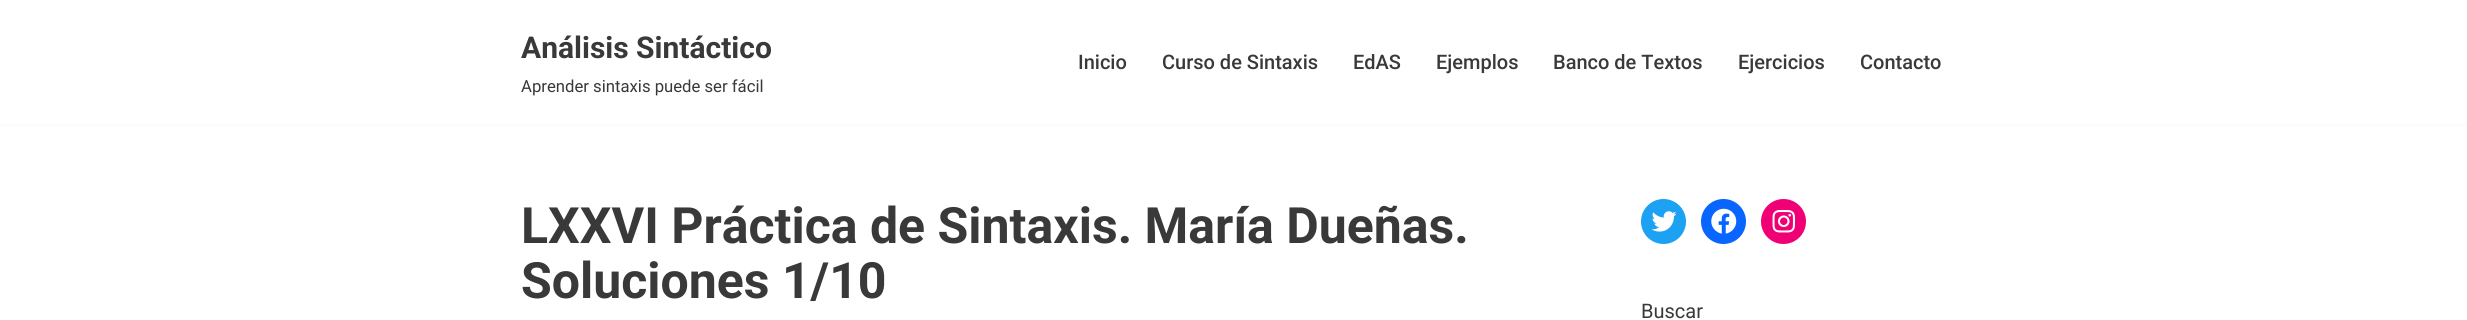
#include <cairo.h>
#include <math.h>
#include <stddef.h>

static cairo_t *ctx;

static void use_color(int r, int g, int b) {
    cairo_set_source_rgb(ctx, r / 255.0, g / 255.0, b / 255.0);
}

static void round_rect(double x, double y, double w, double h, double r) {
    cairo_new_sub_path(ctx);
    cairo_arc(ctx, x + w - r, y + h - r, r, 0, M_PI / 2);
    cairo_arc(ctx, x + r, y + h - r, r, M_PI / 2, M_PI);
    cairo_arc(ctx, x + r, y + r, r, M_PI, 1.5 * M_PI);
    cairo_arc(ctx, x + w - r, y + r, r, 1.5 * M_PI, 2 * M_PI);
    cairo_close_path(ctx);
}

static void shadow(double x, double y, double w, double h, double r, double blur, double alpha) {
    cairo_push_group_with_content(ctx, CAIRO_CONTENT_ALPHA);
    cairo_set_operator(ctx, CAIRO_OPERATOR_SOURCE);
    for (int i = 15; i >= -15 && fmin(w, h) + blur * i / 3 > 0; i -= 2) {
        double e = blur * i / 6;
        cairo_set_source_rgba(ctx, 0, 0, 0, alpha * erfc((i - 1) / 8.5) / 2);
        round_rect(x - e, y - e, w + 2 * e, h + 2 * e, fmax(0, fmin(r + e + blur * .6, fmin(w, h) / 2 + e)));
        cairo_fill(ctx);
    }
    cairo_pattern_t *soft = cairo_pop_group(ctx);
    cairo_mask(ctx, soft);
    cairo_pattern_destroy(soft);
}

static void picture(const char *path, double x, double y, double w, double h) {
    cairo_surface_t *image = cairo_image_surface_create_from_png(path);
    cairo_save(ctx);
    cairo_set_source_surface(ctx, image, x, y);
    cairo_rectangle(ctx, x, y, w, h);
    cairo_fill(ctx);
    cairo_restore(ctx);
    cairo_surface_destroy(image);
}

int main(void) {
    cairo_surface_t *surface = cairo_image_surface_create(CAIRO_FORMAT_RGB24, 2467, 320);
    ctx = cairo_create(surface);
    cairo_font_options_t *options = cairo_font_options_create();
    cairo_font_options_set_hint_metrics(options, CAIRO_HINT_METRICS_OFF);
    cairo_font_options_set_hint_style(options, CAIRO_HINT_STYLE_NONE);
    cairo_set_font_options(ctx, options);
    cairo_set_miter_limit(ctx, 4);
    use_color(255, 255, 255);
    cairo_paint(ctx);
    use_color(0, 0, 0);
    shadow(0, -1, 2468, 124, 0, 2, 0.1);
    use_color(255, 255, 255);
    cairo_rectangle(ctx, 0, 0, 2467, 124);
    cairo_fill(ctx);
    cairo_select_font_face(ctx, "Roboto", CAIRO_FONT_SLANT_NORMAL, CAIRO_FONT_WEIGHT_BOLD);
    cairo_set_font_size(ctx, 30);
    use_color(57, 57, 57);
    cairo_move_to(ctx, 521, 58);
    cairo_show_text(ctx, "Análisis Sintáctico");
    cairo_select_font_face(ctx, "Roboto", CAIRO_FONT_SLANT_NORMAL, CAIRO_FONT_WEIGHT_NORMAL);
    cairo_set_font_size(ctx, 16.7);
    cairo_move_to(ctx, 521, 92);
    cairo_show_text(ctx, "Aprender sintaxis puede ser fácil");
    cairo_select_font_face(ctx, "Roboto Medium", CAIRO_FONT_SLANT_NORMAL, CAIRO_FONT_WEIGHT_NORMAL);
    cairo_set_font_size(ctx, 20);
    cairo_move_to(ctx, 1078, 69);
    cairo_show_text(ctx, "Inicio");
    cairo_move_to(ctx, 1162, 69);
    cairo_show_text(ctx, "Curso de Sintaxis");
    cairo_move_to(ctx, 1353, 69);
    cairo_show_text(ctx, "EdAS");
    cairo_move_to(ctx, 1436, 69);
    cairo_show_text(ctx, "Ejemplos");
    cairo_move_to(ctx, 1553, 69);
    cairo_show_text(ctx, "Banco de Textos");
    cairo_move_to(ctx, 1738, 69);
    cairo_show_text(ctx, "Ejercicios");
    cairo_move_to(ctx, 1860, 69);
    cairo_show_text(ctx, "Contacto");
    cairo_select_font_face(ctx, "Roboto", CAIRO_FONT_SLANT_NORMAL, CAIRO_FONT_WEIGHT_BOLD);
    cairo_set_font_size(ctx, 50);
    cairo_move_to(ctx, 521, 243);
    cairo_show_text(ctx, "LXXVI Práctica de Sintaxis. María Dueñas.");
    cairo_move_to(ctx, 521, 298);
    cairo_show_text(ctx, "Soluciones 1/10");
    use_color(29, 161, 242);
    cairo_new_path(ctx);
    cairo_arc(ctx, 1663.5, 221.5, 22.5, 0, 2 * M_PI);
    cairo_fill(ctx);
    picture("img1.png", 1651, 211, 26, 21);
    use_color(8, 102, 255);
    cairo_arc(ctx, 1723.5, 221.5, 22.5, 0, 2 * M_PI);
    cairo_fill(ctx);
    picture("img2.png", 1711, 208, 26, 26);
    use_color(240, 0, 117);
    cairo_arc(ctx, 1783.5, 221.5, 22.5, 0, 2 * M_PI);
    cairo_fill(ctx);
    picture("img3.png", 1772, 210, 23, 23);
    cairo_select_font_face(ctx, "Roboto", CAIRO_FONT_SLANT_NORMAL, CAIRO_FONT_WEIGHT_NORMAL);
    cairo_set_font_size(ctx, 20);
    use_color(57, 57, 57);
    cairo_move_to(ctx, 1641, 318);
    cairo_show_text(ctx, "Buscar");
    cairo_surface_write_to_png(surface, "result.png");
    cairo_font_options_destroy(options);
    cairo_destroy(ctx);
    cairo_surface_destroy(surface);
    return 0;
}
